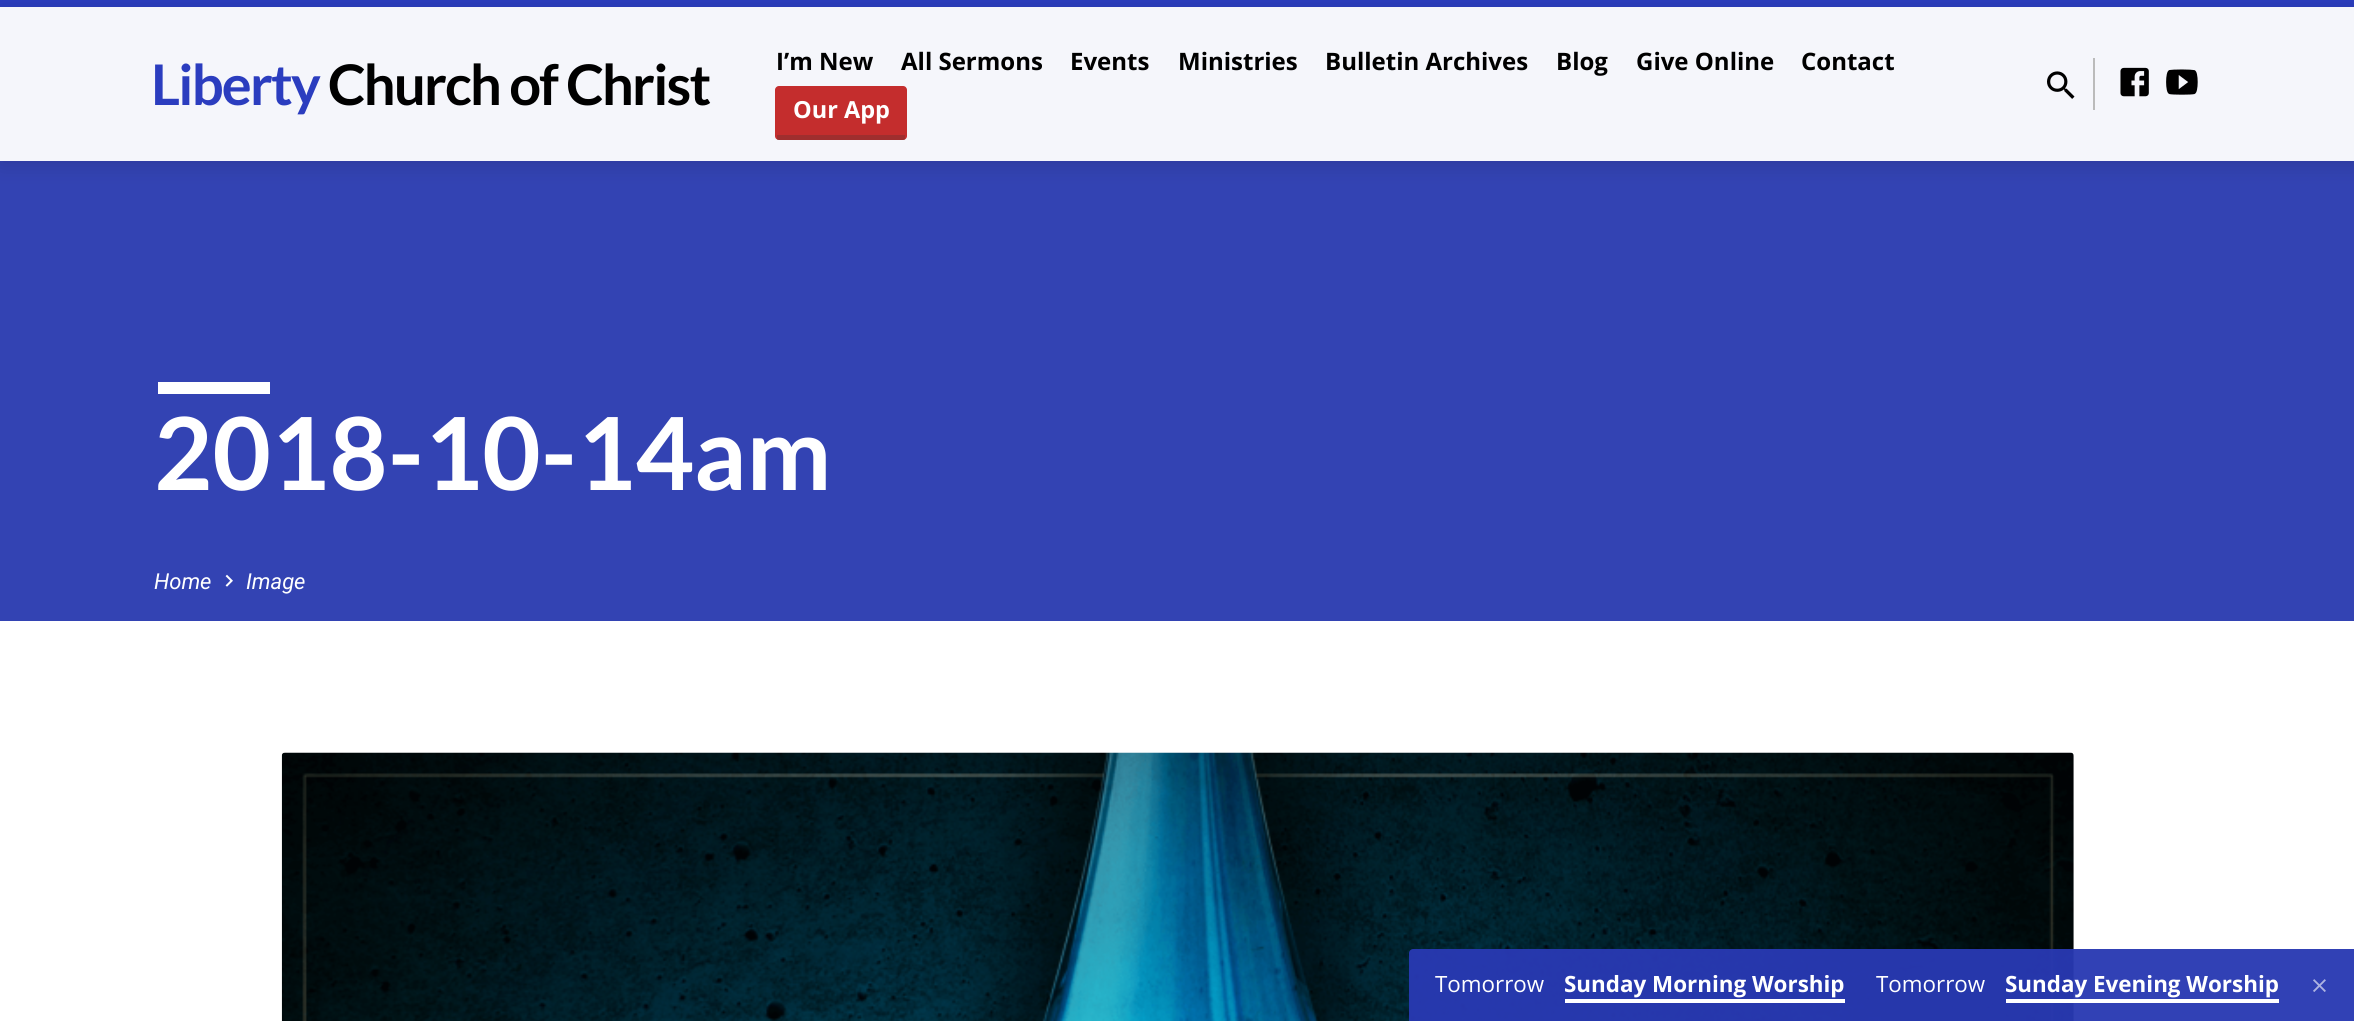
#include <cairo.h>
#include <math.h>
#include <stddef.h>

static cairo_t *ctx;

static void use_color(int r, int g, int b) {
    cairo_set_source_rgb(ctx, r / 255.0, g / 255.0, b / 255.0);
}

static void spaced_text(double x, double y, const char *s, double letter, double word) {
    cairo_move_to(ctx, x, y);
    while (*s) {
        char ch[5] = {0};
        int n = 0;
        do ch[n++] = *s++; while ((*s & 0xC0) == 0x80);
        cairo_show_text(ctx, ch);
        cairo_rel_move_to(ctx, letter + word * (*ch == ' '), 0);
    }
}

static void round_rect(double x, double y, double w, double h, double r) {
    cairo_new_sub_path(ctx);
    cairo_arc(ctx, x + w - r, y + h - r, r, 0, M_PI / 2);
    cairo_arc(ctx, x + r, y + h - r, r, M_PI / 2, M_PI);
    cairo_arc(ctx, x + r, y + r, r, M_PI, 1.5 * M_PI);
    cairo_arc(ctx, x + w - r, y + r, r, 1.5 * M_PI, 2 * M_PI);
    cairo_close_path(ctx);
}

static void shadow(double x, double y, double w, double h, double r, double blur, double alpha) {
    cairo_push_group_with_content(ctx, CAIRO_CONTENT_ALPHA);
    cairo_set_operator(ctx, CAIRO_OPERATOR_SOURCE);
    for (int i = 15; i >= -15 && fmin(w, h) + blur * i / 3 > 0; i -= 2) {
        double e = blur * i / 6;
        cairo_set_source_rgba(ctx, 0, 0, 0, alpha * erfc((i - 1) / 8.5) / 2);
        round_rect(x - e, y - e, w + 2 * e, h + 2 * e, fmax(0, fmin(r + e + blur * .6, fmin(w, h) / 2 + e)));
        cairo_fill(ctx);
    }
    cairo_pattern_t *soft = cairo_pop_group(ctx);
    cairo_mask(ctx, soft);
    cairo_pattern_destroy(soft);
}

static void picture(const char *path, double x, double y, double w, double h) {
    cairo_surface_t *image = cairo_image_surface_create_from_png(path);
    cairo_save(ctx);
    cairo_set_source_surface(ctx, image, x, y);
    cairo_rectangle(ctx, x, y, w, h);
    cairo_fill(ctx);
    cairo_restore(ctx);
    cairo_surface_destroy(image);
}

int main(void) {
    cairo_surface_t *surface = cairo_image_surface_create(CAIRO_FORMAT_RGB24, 2354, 1021);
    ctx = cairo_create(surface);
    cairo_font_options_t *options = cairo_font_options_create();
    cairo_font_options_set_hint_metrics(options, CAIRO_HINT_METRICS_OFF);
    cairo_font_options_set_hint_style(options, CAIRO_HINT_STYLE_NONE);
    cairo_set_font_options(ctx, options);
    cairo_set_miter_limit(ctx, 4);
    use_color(255, 255, 255);
    cairo_paint(ctx);
    use_color(43, 61, 190);
    cairo_rectangle(ctx, 0, 0, 2354, 7);
    cairo_fill(ctx);
    use_color(245, 246, 251);
    cairo_rectangle(ctx, 0, 7, 2354, 154);
    cairo_fill(ctx);
    use_color(51, 67, 179);
    cairo_rectangle(ctx, 0, 161, 2354, 460);
    cairo_fill(ctx);
    cairo_save(ctx);
    cairo_set_fill_rule(ctx, CAIRO_FILL_RULE_EVEN_ODD);
    cairo_new_path(ctx);
    cairo_move_to(ctx, 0, 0);
    cairo_line_to(ctx, 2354, 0);
    cairo_line_to(ctx, 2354, 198);
    cairo_line_to(ctx, 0, 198);
    cairo_close_path(ctx);
    cairo_move_to(ctx, 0, 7);
    cairo_line_to(ctx, 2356, 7);
    cairo_line_to(ctx, 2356, 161);
    cairo_line_to(ctx, 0, 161);
    cairo_close_path(ctx);
    cairo_clip(ctx);
    use_color(0, 0, 0);
    shadow(0, 11, 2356, 154, 0, 10.5, 0.14);
    cairo_restore(ctx);
    cairo_select_font_face(ctx, "Lato", CAIRO_FONT_SLANT_NORMAL, CAIRO_FONT_WEIGHT_BOLD);
    cairo_set_font_size(ctx, 56);
    use_color(43, 61, 191);
    spaced_text(151, 105, "Liberty", -1.75, 0);
    use_color(0, 0, 0);
    spaced_text(328, 105, "Church of Christ", -1.75, 0);
    cairo_select_font_face(ctx, "Open Sans", CAIRO_FONT_SLANT_NORMAL, CAIRO_FONT_WEIGHT_BOLD);
    cairo_set_font_size(ctx, 24);
    cairo_move_to(ctx, 776, 70);
    cairo_show_text(ctx, "I’m New");
    cairo_move_to(ctx, 901, 70);
    cairo_show_text(ctx, "All Sermons");
    cairo_move_to(ctx, 1070, 70);
    cairo_show_text(ctx, "Events");
    cairo_move_to(ctx, 1178, 70);
    cairo_show_text(ctx, "Ministries");
    cairo_move_to(ctx, 1325, 70);
    cairo_show_text(ctx, "Bulletin Archives");
    cairo_move_to(ctx, 1556, 70);
    cairo_show_text(ctx, "Blog");
    cairo_move_to(ctx, 1636, 70);
    cairo_show_text(ctx, "Give Online");
    cairo_move_to(ctx, 1801, 70);
    cairo_show_text(ctx, "Contact");
    use_color(196, 45, 45);
    round_rect(775, 86, 132, 54, 4);
    cairo_fill(ctx);
    cairo_set_source_rgba(ctx, 0.196, 0.196, 0.196, 0.25);
    cairo_rectangle(ctx, 777, 135, 128, 5);
    cairo_fill(ctx);
    cairo_set_font_size(ctx, 23.5);
    use_color(255, 255, 255);
    cairo_move_to(ctx, 793, 118);
    cairo_show_text(ctx, "Our App");
    picture("img1.png", 2047, 71, 28, 28);
    use_color(187, 187, 187);
    cairo_rectangle(ctx, 2093, 58, 2, 52);
    cairo_fill(ctx);
    picture("img2.png", 2120, 67, 29, 30);
    picture("img3.png", 2166, 69, 32, 26);
    use_color(255, 255, 255);
    cairo_rectangle(ctx, 158, 382, 112, 12);
    cairo_fill(ctx);
    cairo_select_font_face(ctx, "Lato", CAIRO_FONT_SLANT_NORMAL, CAIRO_FONT_WEIGHT_BOLD);
    cairo_set_font_size(ctx, 100.75);
    cairo_move_to(ctx, 154, 490);
    cairo_show_text(ctx, "2018-10-14am");
    cairo_select_font_face(ctx, "Roboto", CAIRO_FONT_SLANT_ITALIC, CAIRO_FONT_WEIGHT_NORMAL);
    cairo_set_font_size(ctx, 22);
    cairo_move_to(ctx, 154, 589);
    cairo_show_text(ctx, "Home");
    picture("img4.png", 225, 574, 8, 13);
    cairo_move_to(ctx, 246, 589);
    cairo_show_text(ctx, "Image");
    picture("img5.png", 281, 752, 1793, 269);
    cairo_set_source_rgba(ctx, 0.169, 0.239, 0.749, 0.95);
    cairo_new_path(ctx);
    cairo_move_to(ctx, 1413, 949);
    cairo_line_to(ctx, 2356, 949);
    cairo_line_to(ctx, 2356, 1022);
    cairo_line_to(ctx, 1409, 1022);
    cairo_line_to(ctx, 1409, 953);
    cairo_curve_to(ctx, 1409, 951, 1411, 949, 1413, 949);
    cairo_close_path(ctx);
    cairo_fill(ctx);
    cairo_set_source_rgba(ctx, 0, 0, 0, 0.07);
    cairo_rectangle(ctx, 1409, 949, 945, 72);
    cairo_fill(ctx);
    cairo_select_font_face(ctx, "Open Sans", CAIRO_FONT_SLANT_NORMAL, CAIRO_FONT_WEIGHT_NORMAL);
    cairo_set_font_size(ctx, 22.4);
    use_color(255, 255, 255);
    cairo_move_to(ctx, 1435, 992);
    cairo_show_text(ctx, "Tomorrow");
    cairo_select_font_face(ctx, "Open Sans", CAIRO_FONT_SLANT_NORMAL, CAIRO_FONT_WEIGHT_BOLD);
    cairo_move_to(ctx, 1564, 992);
    cairo_show_text(ctx, "Sunday Morning Worship");
    cairo_rectangle(ctx, 1565, 999, 280, 4);
    cairo_fill(ctx);
    cairo_select_font_face(ctx, "Open Sans", CAIRO_FONT_SLANT_NORMAL, CAIRO_FONT_WEIGHT_NORMAL);
    cairo_move_to(ctx, 1876, 992);
    cairo_show_text(ctx, "Tomorrow");
    cairo_select_font_face(ctx, "Open Sans", CAIRO_FONT_SLANT_NORMAL, CAIRO_FONT_WEIGHT_BOLD);
    cairo_move_to(ctx, 2005, 992);
    cairo_show_text(ctx, "Sunday Evening Worship");
    cairo_rectangle(ctx, 2006, 999, 273, 4);
    cairo_fill(ctx);
    picture("img6.png", 2313, 979, 13, 13);
    cairo_surface_write_to_png(surface, "result.png");
    cairo_font_options_destroy(options);
    cairo_destroy(ctx);
    cairo_surface_destroy(surface);
    return 0;
}
